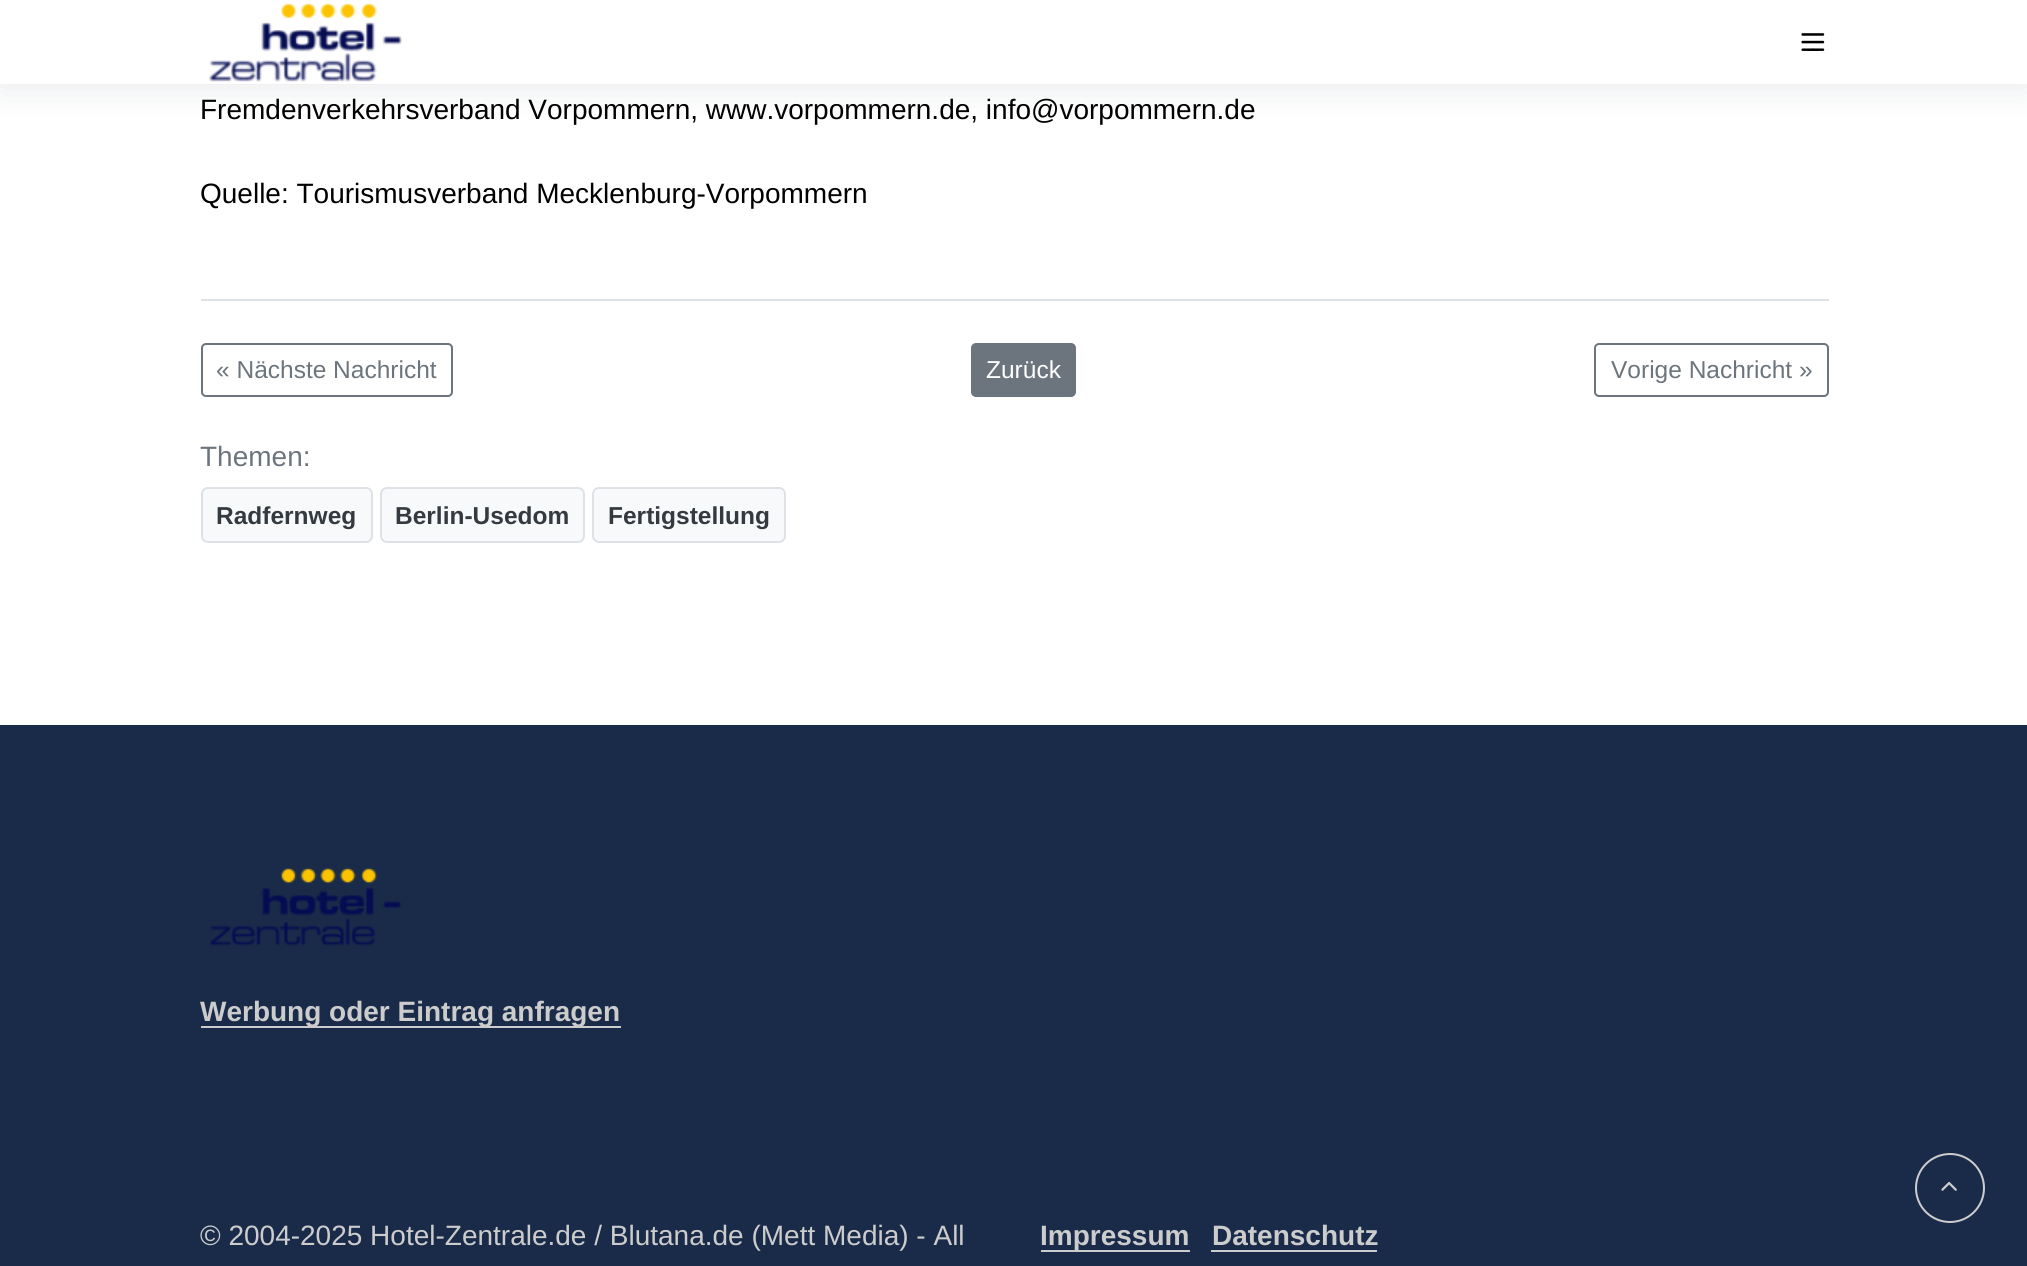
#include <cairo.h>
#include <math.h>
#include <stddef.h>

static cairo_t *ctx;

static void use_color(int r, int g, int b) {
    cairo_set_source_rgb(ctx, r / 255.0, g / 255.0, b / 255.0);
}

static void round_rect(double x, double y, double w, double h, double r) {
    cairo_new_sub_path(ctx);
    cairo_arc(ctx, x + w - r, y + h - r, r, 0, M_PI / 2);
    cairo_arc(ctx, x + r, y + h - r, r, M_PI / 2, M_PI);
    cairo_arc(ctx, x + r, y + r, r, M_PI, 1.5 * M_PI);
    cairo_arc(ctx, x + w - r, y + r, r, 1.5 * M_PI, 2 * M_PI);
    cairo_close_path(ctx);
}

static void shadow(double x, double y, double w, double h, double r, double blur, double alpha) {
    cairo_push_group_with_content(ctx, CAIRO_CONTENT_ALPHA);
    cairo_set_operator(ctx, CAIRO_OPERATOR_SOURCE);
    for (int i = 15; i >= -15 && fmin(w, h) + blur * i / 3 > 0; i -= 2) {
        double e = blur * i / 6;
        cairo_set_source_rgba(ctx, 0, 0, 0, alpha * erfc((i - 1) / 8.5) / 2);
        round_rect(x - e, y - e, w + 2 * e, h + 2 * e, fmax(0, fmin(r + e + blur * .6, fmin(w, h) / 2 + e)));
        cairo_fill(ctx);
    }
    cairo_pattern_t *soft = cairo_pop_group(ctx);
    cairo_mask(ctx, soft);
    cairo_pattern_destroy(soft);
}

static void picture(const char *path, double x, double y, double w, double h) {
    cairo_surface_t *image = cairo_image_surface_create_from_png(path);
    cairo_save(ctx);
    cairo_set_source_surface(ctx, image, x, y);
    cairo_rectangle(ctx, x, y, w, h);
    cairo_fill(ctx);
    cairo_restore(ctx);
    cairo_surface_destroy(image);
}

int main(void) {
    cairo_surface_t *surface = cairo_image_surface_create(CAIRO_FORMAT_RGB24, 2027, 1266);
    ctx = cairo_create(surface);
    cairo_font_options_t *options = cairo_font_options_create();
    cairo_font_options_set_hint_metrics(options, CAIRO_HINT_METRICS_OFF);
    cairo_font_options_set_hint_style(options, CAIRO_HINT_STYLE_NONE);
    cairo_set_font_options(ctx, options);
    cairo_set_miter_limit(ctx, 4);
    use_color(255, 255, 255);
    cairo_paint(ctx);
    use_color(14, 29, 52);
    shadow(0, 4, 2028, 84, 0, 17.5, 0.1);
    use_color(255, 255, 255);
    cairo_rectangle(ctx, 0, 0, 2027, 84);
    cairo_fill(ctx);
    picture("img1.png", 209, 3, 194, 79);
    picture("img2.png", 1801, 33, 24, 18);
    cairo_select_font_face(ctx, "Liberation Sans", CAIRO_FONT_SLANT_NORMAL, CAIRO_FONT_WEIGHT_NORMAL);
    cairo_set_font_size(ctx, 28);
    use_color(0, 0, 0);
    cairo_move_to(ctx, 200, 119);
    cairo_show_text(ctx, "Fremdenverkehrsverband Vorpommern, www.vorpommern.de, info@vorpommern.de");
    cairo_move_to(ctx, 200, 203);
    cairo_show_text(ctx, "Quelle: Tourismusverband Mecklenburg-Vorpommern");
    use_color(222, 226, 230);
    cairo_rectangle(ctx, 201, 299, 1628, 2);
    cairo_fill(ctx);
    round_rect(202, 344, 250, 52, 4);
    use_color(108, 117, 125);
    cairo_stroke(ctx);
    cairo_set_font_size(ctx, 24.5);
    cairo_move_to(ctx, 216, 378);
    cairo_show_text(ctx, "« Nächste Nachricht");
    round_rect(972, 344, 103, 52, 4);
    cairo_fill_preserve(ctx);
    cairo_stroke(ctx);
    use_color(255, 255, 255);
    cairo_move_to(ctx, 986, 378);
    cairo_show_text(ctx, "Zurück");
    round_rect(1595, 344, 233, 52, 4);
    use_color(108, 117, 125);
    cairo_stroke(ctx);
    cairo_move_to(ctx, 1611, 378);
    cairo_show_text(ctx, "Vorige Nachricht »");
    cairo_set_font_size(ctx, 28);
    cairo_move_to(ctx, 200, 466);
    cairo_show_text(ctx, "Themen:");
    use_color(248, 249, 250);
    round_rect(202, 488, 170, 54, 6);
    cairo_fill_preserve(ctx);
    use_color(222, 226, 230);
    cairo_stroke(ctx);
    cairo_select_font_face(ctx, "Liberation Sans", CAIRO_FONT_SLANT_NORMAL, CAIRO_FONT_WEIGHT_BOLD);
    cairo_set_font_size(ctx, 24.5);
    use_color(52, 58, 64);
    cairo_move_to(ctx, 216, 524);
    cairo_show_text(ctx, "Radfernweg");
    use_color(248, 249, 250);
    round_rect(381, 488, 203, 54, 6);
    cairo_fill_preserve(ctx);
    use_color(222, 226, 230);
    cairo_stroke(ctx);
    use_color(52, 58, 64);
    cairo_move_to(ctx, 395, 524);
    cairo_show_text(ctx, "Berlin-Usedom");
    use_color(248, 249, 250);
    round_rect(593, 488, 192, 54, 6);
    cairo_fill_preserve(ctx);
    use_color(222, 226, 230);
    cairo_stroke(ctx);
    use_color(52, 58, 64);
    cairo_move_to(ctx, 608, 524);
    cairo_show_text(ctx, "Fertigstellung");
    use_color(26, 43, 73);
    cairo_rectangle(ctx, 0, 725, 2027, 541);
    cairo_fill(ctx);
    picture("img3.png", 210, 867, 191, 79);
    use_color(204, 204, 204);
    cairo_rectangle(ctx, 201, 1026, 420, 2);
    cairo_fill(ctx);
    cairo_set_font_size(ctx, 28);
    cairo_move_to(ctx, 200, 1021);
    cairo_show_text(ctx, "Werbung oder Eintrag anfragen");
    cairo_select_font_face(ctx, "Liberation Sans", CAIRO_FONT_SLANT_NORMAL, CAIRO_FONT_WEIGHT_NORMAL);
    cairo_move_to(ctx, 200, 1245);
    cairo_show_text(ctx, "© 2004-2025 Hotel-Zentrale.de / Blutana.de (Mett Media) - All");
    cairo_rectangle(ctx, 1041, 1250, 149, 2);
    cairo_fill(ctx);
    cairo_select_font_face(ctx, "Liberation Sans", CAIRO_FONT_SLANT_NORMAL, CAIRO_FONT_WEIGHT_BOLD);
    cairo_move_to(ctx, 1040, 1245);
    cairo_show_text(ctx, "Impressum");
    cairo_move_to(ctx, 1212, 1245);
    cairo_show_text(ctx, "Datenschutz");
    cairo_rectangle(ctx, 1211, 1250, 166, 2);
    cairo_fill(ctx);
    cairo_arc(ctx, 1950, 1188, 34, 0, 2 * M_PI);
    cairo_stroke(ctx);
    picture("img4.png", 1941, 1181, 16, 10);
    cairo_surface_write_to_png(surface, "result.png");
    cairo_font_options_destroy(options);
    cairo_destroy(ctx);
    cairo_surface_destroy(surface);
    return 0;
}
